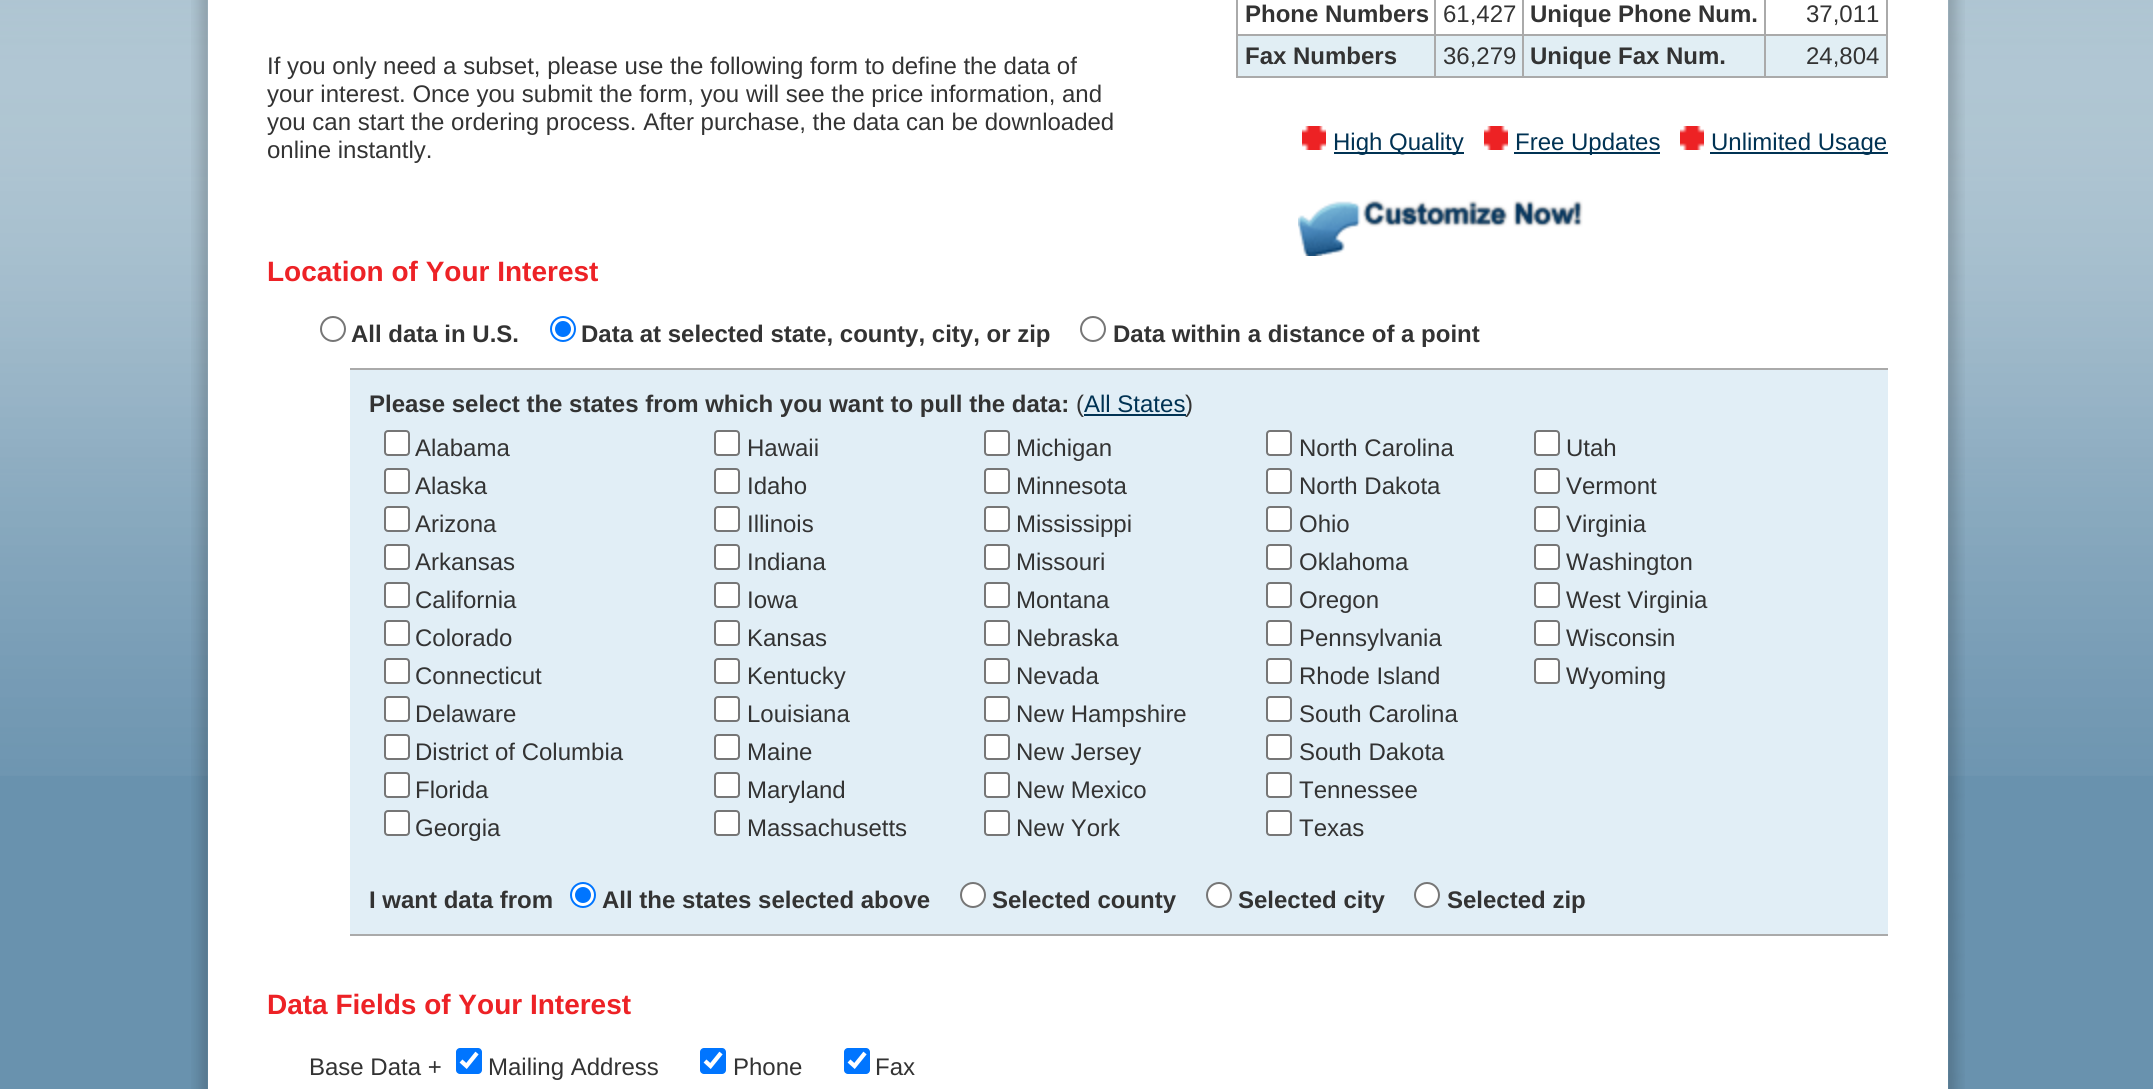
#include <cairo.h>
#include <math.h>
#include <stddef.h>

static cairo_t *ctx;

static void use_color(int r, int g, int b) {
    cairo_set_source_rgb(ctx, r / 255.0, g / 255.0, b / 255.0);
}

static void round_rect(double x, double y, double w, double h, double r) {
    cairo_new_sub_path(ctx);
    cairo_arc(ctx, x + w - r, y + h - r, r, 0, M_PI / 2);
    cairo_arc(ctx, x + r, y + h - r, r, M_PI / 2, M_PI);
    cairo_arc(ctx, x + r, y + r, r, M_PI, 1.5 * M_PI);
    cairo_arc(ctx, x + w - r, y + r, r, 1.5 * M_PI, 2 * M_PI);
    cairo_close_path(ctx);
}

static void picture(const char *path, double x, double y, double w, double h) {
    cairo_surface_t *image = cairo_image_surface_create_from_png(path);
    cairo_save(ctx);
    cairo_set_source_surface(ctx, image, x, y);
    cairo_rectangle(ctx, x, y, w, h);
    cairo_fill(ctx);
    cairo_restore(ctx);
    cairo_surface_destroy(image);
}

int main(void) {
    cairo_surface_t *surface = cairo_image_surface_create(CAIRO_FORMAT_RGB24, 2153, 1089);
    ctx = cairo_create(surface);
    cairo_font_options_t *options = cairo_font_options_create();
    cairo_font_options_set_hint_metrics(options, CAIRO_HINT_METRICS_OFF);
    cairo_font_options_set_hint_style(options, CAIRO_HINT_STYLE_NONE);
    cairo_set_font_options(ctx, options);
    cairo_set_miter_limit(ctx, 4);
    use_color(105, 146, 174);
    cairo_paint(ctx);
    picture("img1.png", 0, 0, 2153, 776);
    picture("img2.png", 191, 0, 1774, 1089);
    use_color(255, 255, 255);
    cairo_rectangle(ctx, 208, 0, 1740, 1089);
    cairo_fill(ctx);
    use_color(170, 170, 170);
    cairo_rectangle(ctx, 1886, 0, 2, 78);
    cairo_fill(ctx);
    cairo_rectangle(ctx, 1236, 0, 2, 78);
    cairo_fill(ctx);
    cairo_rectangle(ctx, 1434, 0, 2, 36);
    cairo_fill(ctx);
    cairo_rectangle(ctx, 1238, 34, 198, 2);
    cairo_fill(ctx);
    cairo_select_font_face(ctx, "Liberation Sans", CAIRO_FONT_SLANT_NORMAL, CAIRO_FONT_WEIGHT_BOLD);
    cairo_set_font_size(ctx, 24);
    use_color(51, 51, 51);
    cairo_move_to(ctx, 1245, 22);
    cairo_show_text(ctx, "Phone Numbers");
    use_color(170, 170, 170);
    cairo_rectangle(ctx, 1522, 0, 2, 36);
    cairo_fill(ctx);
    cairo_rectangle(ctx, 1436, 34, 88, 2);
    cairo_fill(ctx);
    cairo_select_font_face(ctx, "Liberation Sans", CAIRO_FONT_SLANT_NORMAL, CAIRO_FONT_WEIGHT_NORMAL);
    use_color(51, 51, 51);
    cairo_move_to(ctx, 1443, 22);
    cairo_show_text(ctx, "61,427");
    use_color(170, 170, 170);
    cairo_rectangle(ctx, 1764, 0, 2, 36);
    cairo_fill(ctx);
    cairo_rectangle(ctx, 1524, 34, 362, 2);
    cairo_fill(ctx);
    cairo_select_font_face(ctx, "Liberation Sans", CAIRO_FONT_SLANT_NORMAL, CAIRO_FONT_WEIGHT_BOLD);
    use_color(51, 51, 51);
    cairo_move_to(ctx, 1530, 22);
    cairo_show_text(ctx, "Unique Phone Num.");
    cairo_select_font_face(ctx, "Liberation Sans", CAIRO_FONT_SLANT_NORMAL, CAIRO_FONT_WEIGHT_NORMAL);
    cairo_move_to(ctx, 1806, 22);
    cairo_show_text(ctx, "37,011");
    use_color(225, 238, 244);
    cairo_rectangle(ctx, 1238, 36, 648, 40);
    cairo_fill(ctx);
    use_color(170, 170, 170);
    cairo_rectangle(ctx, 1434, 36, 2, 42);
    cairo_fill(ctx);
    cairo_rectangle(ctx, 1238, 76, 198, 2);
    cairo_fill(ctx);
    cairo_select_font_face(ctx, "Liberation Sans", CAIRO_FONT_SLANT_NORMAL, CAIRO_FONT_WEIGHT_BOLD);
    use_color(51, 51, 51);
    cairo_move_to(ctx, 1245, 64);
    cairo_show_text(ctx, "Fax Numbers");
    use_color(170, 170, 170);
    cairo_rectangle(ctx, 1522, 36, 2, 42);
    cairo_fill(ctx);
    cairo_rectangle(ctx, 1436, 76, 88, 2);
    cairo_fill(ctx);
    cairo_select_font_face(ctx, "Liberation Sans", CAIRO_FONT_SLANT_NORMAL, CAIRO_FONT_WEIGHT_NORMAL);
    use_color(51, 51, 51);
    cairo_move_to(ctx, 1443, 64);
    cairo_show_text(ctx, "36,279");
    use_color(170, 170, 170);
    cairo_rectangle(ctx, 1764, 36, 2, 42);
    cairo_fill(ctx);
    cairo_rectangle(ctx, 1524, 76, 362, 2);
    cairo_fill(ctx);
    cairo_select_font_face(ctx, "Liberation Sans", CAIRO_FONT_SLANT_NORMAL, CAIRO_FONT_WEIGHT_BOLD);
    use_color(51, 51, 51);
    cairo_move_to(ctx, 1530, 64);
    cairo_show_text(ctx, "Unique Fax Num.");
    cairo_select_font_face(ctx, "Liberation Sans", CAIRO_FONT_SLANT_NORMAL, CAIRO_FONT_WEIGHT_NORMAL);
    cairo_move_to(ctx, 1806, 64);
    cairo_show_text(ctx, "24,804");
    cairo_move_to(ctx, 267, 74);
    cairo_show_text(ctx, "If you only need a subset, please use the following form to define the data of");
    cairo_move_to(ctx, 267, 102);
    cairo_show_text(ctx, "your interest. Once you submit the form, you will see the price information, and");
    cairo_move_to(ctx, 267, 130);
    cairo_show_text(ctx, "you can start the ordering process. After purchase, the data can be downloaded");
    cairo_move_to(ctx, 267, 158);
    cairo_show_text(ctx, "online instantly.");
    picture("img3.png", 1302, 126, 24, 24);
    use_color(0, 50, 83);
    cairo_rectangle(ctx, 1334, 152, 130, 2);
    cairo_fill(ctx);
    cairo_move_to(ctx, 1333, 150);
    cairo_show_text(ctx, "High Quality");
    picture("img3.png", 1484, 126, 24, 24);
    cairo_rectangle(ctx, 1514, 152, 146, 2);
    cairo_fill(ctx);
    cairo_move_to(ctx, 1515, 150);
    cairo_show_text(ctx, "Free Updates");
    picture("img3.png", 1680, 126, 24, 24);
    cairo_rectangle(ctx, 1710, 152, 178, 2);
    cairo_fill(ctx);
    cairo_move_to(ctx, 1711, 150);
    cairo_show_text(ctx, "Unlimited Usage");
    picture("img4.png", 1298, 199, 285, 57);
    cairo_select_font_face(ctx, "Liberation Sans", CAIRO_FONT_SLANT_NORMAL, CAIRO_FONT_WEIGHT_BOLD);
    cairo_set_font_size(ctx, 28);
    use_color(237, 34, 38);
    cairo_move_to(ctx, 267, 281);
    cairo_show_text(ctx, "Location of Your Interest");
    cairo_new_path(ctx);
    cairo_arc(ctx, 333, 329, 12, 0, 2 * M_PI);
    use_color(118, 118, 118);
    cairo_stroke(ctx);
    cairo_set_font_size(ctx, 24);
    use_color(51, 51, 51);
    cairo_move_to(ctx, 351, 342);
    cairo_show_text(ctx, "All data in U.S.");
    cairo_new_path(ctx);
    cairo_arc(ctx, 563, 329, 12, 0, 2 * M_PI);
    use_color(0, 117, 255);
    cairo_stroke(ctx);
    cairo_arc(ctx, 563, 329, 8, 0, 2 * M_PI);
    cairo_fill(ctx);
    use_color(51, 51, 51);
    cairo_move_to(ctx, 581, 342);
    cairo_show_text(ctx, "Data at selected state, county, city, or zip");
    cairo_new_path(ctx);
    cairo_arc(ctx, 1093, 329, 12, 0, 2 * M_PI);
    use_color(118, 118, 118);
    cairo_stroke(ctx);
    use_color(51, 51, 51);
    cairo_move_to(ctx, 1113, 342);
    cairo_show_text(ctx, "Data within a distance of a point");
    use_color(225, 238, 246);
    cairo_rectangle(ctx, 350, 370, 1538, 564);
    cairo_fill(ctx);
    use_color(170, 170, 170);
    cairo_rectangle(ctx, 350, 368, 1538, 2);
    cairo_fill(ctx);
    cairo_rectangle(ctx, 350, 934, 1538, 2);
    cairo_fill(ctx);
    use_color(51, 51, 51);
    cairo_move_to(ctx, 369, 412);
    cairo_show_text(ctx, "Please select the states from which you want to pull the data:");
    cairo_select_font_face(ctx, "Liberation Sans", CAIRO_FONT_SLANT_NORMAL, CAIRO_FONT_WEIGHT_NORMAL);
    cairo_move_to(ctx, 1076, 412);
    cairo_show_text(ctx, "(");
    use_color(0, 50, 83);
    cairo_move_to(ctx, 1084, 412);
    cairo_show_text(ctx, "All States");
    cairo_rectangle(ctx, 1084, 414, 102, 2);
    cairo_fill(ctx);
    use_color(51, 51, 51);
    cairo_move_to(ctx, 1185, 412);
    cairo_show_text(ctx, ")");
    use_color(255, 255, 255);
    round_rect(385, 431, 24, 24, 3);
    cairo_fill_preserve(ctx);
    use_color(118, 118, 118);
    cairo_stroke(ctx);
    use_color(51, 51, 51);
    cairo_move_to(ctx, 415, 456);
    cairo_show_text(ctx, "Alabama");
    use_color(255, 255, 255);
    round_rect(385, 469, 24, 24, 3);
    cairo_fill_preserve(ctx);
    use_color(118, 118, 118);
    cairo_stroke(ctx);
    use_color(51, 51, 51);
    cairo_move_to(ctx, 415, 494);
    cairo_show_text(ctx, "Alaska");
    use_color(255, 255, 255);
    round_rect(385, 507, 24, 24, 3);
    cairo_fill_preserve(ctx);
    use_color(118, 118, 118);
    cairo_stroke(ctx);
    use_color(51, 51, 51);
    cairo_move_to(ctx, 415, 532);
    cairo_show_text(ctx, "Arizona");
    use_color(255, 255, 255);
    round_rect(385, 545, 24, 24, 3);
    cairo_fill_preserve(ctx);
    use_color(118, 118, 118);
    cairo_stroke(ctx);
    use_color(51, 51, 51);
    cairo_move_to(ctx, 415, 570);
    cairo_show_text(ctx, "Arkansas");
    use_color(255, 255, 255);
    round_rect(385, 583, 24, 24, 3);
    cairo_fill_preserve(ctx);
    use_color(118, 118, 118);
    cairo_stroke(ctx);
    use_color(51, 51, 51);
    cairo_move_to(ctx, 415, 608);
    cairo_show_text(ctx, "California");
    use_color(255, 255, 255);
    round_rect(385, 621, 24, 24, 3);
    cairo_fill_preserve(ctx);
    use_color(118, 118, 118);
    cairo_stroke(ctx);
    use_color(51, 51, 51);
    cairo_move_to(ctx, 415, 646);
    cairo_show_text(ctx, "Colorado");
    use_color(255, 255, 255);
    round_rect(385, 659, 24, 24, 3);
    cairo_fill_preserve(ctx);
    use_color(118, 118, 118);
    cairo_stroke(ctx);
    use_color(51, 51, 51);
    cairo_move_to(ctx, 415, 684);
    cairo_show_text(ctx, "Connecticut");
    use_color(255, 255, 255);
    round_rect(385, 697, 24, 24, 3);
    cairo_fill_preserve(ctx);
    use_color(118, 118, 118);
    cairo_stroke(ctx);
    use_color(51, 51, 51);
    cairo_move_to(ctx, 415, 722);
    cairo_show_text(ctx, "Delaware");
    use_color(255, 255, 255);
    round_rect(385, 735, 24, 24, 3);
    cairo_fill_preserve(ctx);
    use_color(118, 118, 118);
    cairo_stroke(ctx);
    use_color(51, 51, 51);
    cairo_move_to(ctx, 415, 760);
    cairo_show_text(ctx, "District of Columbia");
    use_color(255, 255, 255);
    round_rect(385, 773, 24, 24, 3);
    cairo_fill_preserve(ctx);
    use_color(118, 118, 118);
    cairo_stroke(ctx);
    use_color(51, 51, 51);
    cairo_move_to(ctx, 415, 798);
    cairo_show_text(ctx, "Florida");
    use_color(255, 255, 255);
    round_rect(385, 811, 24, 24, 3);
    cairo_fill_preserve(ctx);
    use_color(118, 118, 118);
    cairo_stroke(ctx);
    use_color(51, 51, 51);
    cairo_move_to(ctx, 415, 836);
    cairo_show_text(ctx, "Georgia");
    use_color(255, 255, 255);
    round_rect(715, 431, 24, 24, 3);
    cairo_fill_preserve(ctx);
    use_color(118, 118, 118);
    cairo_stroke(ctx);
    use_color(51, 51, 51);
    cairo_move_to(ctx, 747, 456);
    cairo_show_text(ctx, "Hawaii");
    use_color(255, 255, 255);
    round_rect(715, 469, 24, 24, 3);
    cairo_fill_preserve(ctx);
    use_color(118, 118, 118);
    cairo_stroke(ctx);
    use_color(51, 51, 51);
    cairo_move_to(ctx, 747, 494);
    cairo_show_text(ctx, "Idaho");
    use_color(255, 255, 255);
    round_rect(715, 507, 24, 24, 3);
    cairo_fill_preserve(ctx);
    use_color(118, 118, 118);
    cairo_stroke(ctx);
    use_color(51, 51, 51);
    cairo_move_to(ctx, 747, 532);
    cairo_show_text(ctx, "Illinois");
    use_color(255, 255, 255);
    round_rect(715, 545, 24, 24, 3);
    cairo_fill_preserve(ctx);
    use_color(118, 118, 118);
    cairo_stroke(ctx);
    use_color(51, 51, 51);
    cairo_move_to(ctx, 747, 570);
    cairo_show_text(ctx, "Indiana");
    use_color(255, 255, 255);
    round_rect(715, 583, 24, 24, 3);
    cairo_fill_preserve(ctx);
    use_color(118, 118, 118);
    cairo_stroke(ctx);
    use_color(51, 51, 51);
    cairo_move_to(ctx, 747, 608);
    cairo_show_text(ctx, "Iowa");
    use_color(255, 255, 255);
    round_rect(715, 621, 24, 24, 3);
    cairo_fill_preserve(ctx);
    use_color(118, 118, 118);
    cairo_stroke(ctx);
    use_color(51, 51, 51);
    cairo_move_to(ctx, 747, 646);
    cairo_show_text(ctx, "Kansas");
    use_color(255, 255, 255);
    round_rect(715, 659, 24, 24, 3);
    cairo_fill_preserve(ctx);
    use_color(118, 118, 118);
    cairo_stroke(ctx);
    use_color(51, 51, 51);
    cairo_move_to(ctx, 747, 684);
    cairo_show_text(ctx, "Kentucky");
    use_color(255, 255, 255);
    round_rect(715, 697, 24, 24, 3);
    cairo_fill_preserve(ctx);
    use_color(118, 118, 118);
    cairo_stroke(ctx);
    use_color(51, 51, 51);
    cairo_move_to(ctx, 747, 722);
    cairo_show_text(ctx, "Louisiana");
    use_color(255, 255, 255);
    round_rect(715, 735, 24, 24, 3);
    cairo_fill_preserve(ctx);
    use_color(118, 118, 118);
    cairo_stroke(ctx);
    use_color(51, 51, 51);
    cairo_move_to(ctx, 747, 760);
    cairo_show_text(ctx, "Maine");
    use_color(255, 255, 255);
    round_rect(715, 773, 24, 24, 3);
    cairo_fill_preserve(ctx);
    use_color(118, 118, 118);
    cairo_stroke(ctx);
    use_color(51, 51, 51);
    cairo_move_to(ctx, 747, 798);
    cairo_show_text(ctx, "Maryland");
    use_color(255, 255, 255);
    round_rect(715, 811, 24, 24, 3);
    cairo_fill_preserve(ctx);
    use_color(118, 118, 118);
    cairo_stroke(ctx);
    use_color(51, 51, 51);
    cairo_move_to(ctx, 747, 836);
    cairo_show_text(ctx, "Massachusetts");
    use_color(255, 255, 255);
    round_rect(985, 431, 24, 24, 3);
    cairo_fill_preserve(ctx);
    use_color(118, 118, 118);
    cairo_stroke(ctx);
    use_color(51, 51, 51);
    cairo_move_to(ctx, 1016, 456);
    cairo_show_text(ctx, "Michigan");
    use_color(255, 255, 255);
    round_rect(985, 469, 24, 24, 3);
    cairo_fill_preserve(ctx);
    use_color(118, 118, 118);
    cairo_stroke(ctx);
    use_color(51, 51, 51);
    cairo_move_to(ctx, 1016, 494);
    cairo_show_text(ctx, "Minnesota");
    use_color(255, 255, 255);
    round_rect(985, 507, 24, 24, 3);
    cairo_fill_preserve(ctx);
    use_color(118, 118, 118);
    cairo_stroke(ctx);
    use_color(51, 51, 51);
    cairo_move_to(ctx, 1016, 532);
    cairo_show_text(ctx, "Mississippi");
    use_color(255, 255, 255);
    round_rect(985, 545, 24, 24, 3);
    cairo_fill_preserve(ctx);
    use_color(118, 118, 118);
    cairo_stroke(ctx);
    use_color(51, 51, 51);
    cairo_move_to(ctx, 1016, 570);
    cairo_show_text(ctx, "Missouri");
    use_color(255, 255, 255);
    round_rect(985, 583, 24, 24, 3);
    cairo_fill_preserve(ctx);
    use_color(118, 118, 118);
    cairo_stroke(ctx);
    use_color(51, 51, 51);
    cairo_move_to(ctx, 1016, 608);
    cairo_show_text(ctx, "Montana");
    use_color(255, 255, 255);
    round_rect(985, 621, 24, 24, 3);
    cairo_fill_preserve(ctx);
    use_color(118, 118, 118);
    cairo_stroke(ctx);
    use_color(51, 51, 51);
    cairo_move_to(ctx, 1016, 646);
    cairo_show_text(ctx, "Nebraska");
    use_color(255, 255, 255);
    round_rect(985, 659, 24, 24, 3);
    cairo_fill_preserve(ctx);
    use_color(118, 118, 118);
    cairo_stroke(ctx);
    use_color(51, 51, 51);
    cairo_move_to(ctx, 1016, 684);
    cairo_show_text(ctx, "Nevada");
    use_color(255, 255, 255);
    round_rect(985, 697, 24, 24, 3);
    cairo_fill_preserve(ctx);
    use_color(118, 118, 118);
    cairo_stroke(ctx);
    use_color(51, 51, 51);
    cairo_move_to(ctx, 1016, 722);
    cairo_show_text(ctx, "New Hampshire");
    use_color(255, 255, 255);
    round_rect(985, 735, 24, 24, 3);
    cairo_fill_preserve(ctx);
    use_color(118, 118, 118);
    cairo_stroke(ctx);
    use_color(51, 51, 51);
    cairo_move_to(ctx, 1016, 760);
    cairo_show_text(ctx, "New Jersey");
    use_color(255, 255, 255);
    round_rect(985, 773, 24, 24, 3);
    cairo_fill_preserve(ctx);
    use_color(118, 118, 118);
    cairo_stroke(ctx);
    use_color(51, 51, 51);
    cairo_move_to(ctx, 1016, 798);
    cairo_show_text(ctx, "New Mexico");
    use_color(255, 255, 255);
    round_rect(985, 811, 24, 24, 3);
    cairo_fill_preserve(ctx);
    use_color(118, 118, 118);
    cairo_stroke(ctx);
    use_color(51, 51, 51);
    cairo_move_to(ctx, 1016, 836);
    cairo_show_text(ctx, "New York");
    use_color(255, 255, 255);
    round_rect(1267, 431, 24, 24, 3);
    cairo_fill_preserve(ctx);
    use_color(118, 118, 118);
    cairo_stroke(ctx);
    use_color(51, 51, 51);
    cairo_move_to(ctx, 1299, 456);
    cairo_show_text(ctx, "North Carolina");
    use_color(255, 255, 255);
    round_rect(1267, 469, 24, 24, 3);
    cairo_fill_preserve(ctx);
    use_color(118, 118, 118);
    cairo_stroke(ctx);
    use_color(51, 51, 51);
    cairo_move_to(ctx, 1299, 494);
    cairo_show_text(ctx, "North Dakota");
    use_color(255, 255, 255);
    round_rect(1267, 507, 24, 24, 3);
    cairo_fill_preserve(ctx);
    use_color(118, 118, 118);
    cairo_stroke(ctx);
    use_color(51, 51, 51);
    cairo_move_to(ctx, 1299, 532);
    cairo_show_text(ctx, "Ohio");
    use_color(255, 255, 255);
    round_rect(1267, 545, 24, 24, 3);
    cairo_fill_preserve(ctx);
    use_color(118, 118, 118);
    cairo_stroke(ctx);
    use_color(51, 51, 51);
    cairo_move_to(ctx, 1299, 570);
    cairo_show_text(ctx, "Oklahoma");
    use_color(255, 255, 255);
    round_rect(1267, 583, 24, 24, 3);
    cairo_fill_preserve(ctx);
    use_color(118, 118, 118);
    cairo_stroke(ctx);
    use_color(51, 51, 51);
    cairo_move_to(ctx, 1299, 608);
    cairo_show_text(ctx, "Oregon");
    use_color(255, 255, 255);
    round_rect(1267, 621, 24, 24, 3);
    cairo_fill_preserve(ctx);
    use_color(118, 118, 118);
    cairo_stroke(ctx);
    use_color(51, 51, 51);
    cairo_move_to(ctx, 1299, 646);
    cairo_show_text(ctx, "Pennsylvania");
    use_color(255, 255, 255);
    round_rect(1267, 659, 24, 24, 3);
    cairo_fill_preserve(ctx);
    use_color(118, 118, 118);
    cairo_stroke(ctx);
    use_color(51, 51, 51);
    cairo_move_to(ctx, 1299, 684);
    cairo_show_text(ctx, "Rhode Island");
    use_color(255, 255, 255);
    round_rect(1267, 697, 24, 24, 3);
    cairo_fill_preserve(ctx);
    use_color(118, 118, 118);
    cairo_stroke(ctx);
    use_color(51, 51, 51);
    cairo_move_to(ctx, 1299, 722);
    cairo_show_text(ctx, "South Carolina");
    use_color(255, 255, 255);
    round_rect(1267, 735, 24, 24, 3);
    cairo_fill_preserve(ctx);
    use_color(118, 118, 118);
    cairo_stroke(ctx);
    use_color(51, 51, 51);
    cairo_move_to(ctx, 1299, 760);
    cairo_show_text(ctx, "South Dakota");
    use_color(255, 255, 255);
    round_rect(1267, 773, 24, 24, 3);
    cairo_fill_preserve(ctx);
    use_color(118, 118, 118);
    cairo_stroke(ctx);
    use_color(51, 51, 51);
    cairo_move_to(ctx, 1299, 798);
    cairo_show_text(ctx, "Tennessee");
    use_color(255, 255, 255);
    round_rect(1267, 811, 24, 24, 3);
    cairo_fill_preserve(ctx);
    use_color(118, 118, 118);
    cairo_stroke(ctx);
    use_color(51, 51, 51);
    cairo_move_to(ctx, 1299, 836);
    cairo_show_text(ctx, "Texas");
    use_color(255, 255, 255);
    round_rect(1535, 431, 24, 24, 3);
    cairo_fill_preserve(ctx);
    use_color(118, 118, 118);
    cairo_stroke(ctx);
    use_color(51, 51, 51);
    cairo_move_to(ctx, 1566, 456);
    cairo_show_text(ctx, "Utah");
    use_color(255, 255, 255);
    round_rect(1535, 469, 24, 24, 3);
    cairo_fill_preserve(ctx);
    use_color(118, 118, 118);
    cairo_stroke(ctx);
    use_color(51, 51, 51);
    cairo_move_to(ctx, 1566, 494);
    cairo_show_text(ctx, "Vermont");
    use_color(255, 255, 255);
    round_rect(1535, 507, 24, 24, 3);
    cairo_fill_preserve(ctx);
    use_color(118, 118, 118);
    cairo_stroke(ctx);
    use_color(51, 51, 51);
    cairo_move_to(ctx, 1566, 532);
    cairo_show_text(ctx, "Virginia");
    use_color(255, 255, 255);
    round_rect(1535, 545, 24, 24, 3);
    cairo_fill_preserve(ctx);
    use_color(118, 118, 118);
    cairo_stroke(ctx);
    use_color(51, 51, 51);
    cairo_move_to(ctx, 1566, 570);
    cairo_show_text(ctx, "Washington");
    use_color(255, 255, 255);
    round_rect(1535, 583, 24, 24, 3);
    cairo_fill_preserve(ctx);
    use_color(118, 118, 118);
    cairo_stroke(ctx);
    use_color(51, 51, 51);
    cairo_move_to(ctx, 1566, 608);
    cairo_show_text(ctx, "West Virginia");
    use_color(255, 255, 255);
    round_rect(1535, 621, 24, 24, 3);
    cairo_fill_preserve(ctx);
    use_color(118, 118, 118);
    cairo_stroke(ctx);
    use_color(51, 51, 51);
    cairo_move_to(ctx, 1566, 646);
    cairo_show_text(ctx, "Wisconsin");
    use_color(255, 255, 255);
    round_rect(1535, 659, 24, 24, 3);
    cairo_fill_preserve(ctx);
    use_color(118, 118, 118);
    cairo_stroke(ctx);
    use_color(51, 51, 51);
    cairo_move_to(ctx, 1566, 684);
    cairo_show_text(ctx, "Wyoming");
    cairo_select_font_face(ctx, "Liberation Sans", CAIRO_FONT_SLANT_NORMAL, CAIRO_FONT_WEIGHT_BOLD);
    cairo_move_to(ctx, 369, 908);
    cairo_show_text(ctx, "I want data from");
    use_color(255, 255, 255);
    cairo_new_path(ctx);
    cairo_arc(ctx, 583, 895, 12, 0, 2 * M_PI);
    cairo_fill_preserve(ctx);
    use_color(0, 117, 255);
    cairo_stroke(ctx);
    cairo_arc(ctx, 583, 895, 8, 0, 2 * M_PI);
    cairo_fill(ctx);
    use_color(51, 51, 51);
    cairo_move_to(ctx, 602, 908);
    cairo_show_text(ctx, "All the states selected above");
    use_color(255, 255, 255);
    cairo_new_path(ctx);
    cairo_arc(ctx, 973, 895, 12, 0, 2 * M_PI);
    cairo_fill_preserve(ctx);
    use_color(118, 118, 118);
    cairo_stroke(ctx);
    use_color(51, 51, 51);
    cairo_move_to(ctx, 992, 908);
    cairo_show_text(ctx, "Selected county");
    use_color(255, 255, 255);
    cairo_new_path(ctx);
    cairo_arc(ctx, 1219, 895, 12, 0, 2 * M_PI);
    cairo_fill_preserve(ctx);
    use_color(118, 118, 118);
    cairo_stroke(ctx);
    use_color(51, 51, 51);
    cairo_move_to(ctx, 1238, 908);
    cairo_show_text(ctx, "Selected city");
    use_color(255, 255, 255);
    cairo_new_path(ctx);
    cairo_arc(ctx, 1427, 895, 12, 0, 2 * M_PI);
    cairo_fill_preserve(ctx);
    use_color(118, 118, 118);
    cairo_stroke(ctx);
    use_color(51, 51, 51);
    cairo_move_to(ctx, 1447, 908);
    cairo_show_text(ctx, "Selected zip");
    cairo_set_font_size(ctx, 28);
    use_color(237, 34, 38);
    cairo_move_to(ctx, 267, 1014);
    cairo_show_text(ctx, "Data Fields of Your Interest");
    cairo_select_font_face(ctx, "Liberation Sans", CAIRO_FONT_SLANT_NORMAL, CAIRO_FONT_WEIGHT_NORMAL);
    cairo_set_font_size(ctx, 24);
    use_color(51, 51, 51);
    cairo_move_to(ctx, 309, 1075);
    cairo_show_text(ctx, "Base Data +");
    use_color(0, 117, 255);
    round_rect(456, 1048, 26, 26, 4);
    cairo_fill(ctx);
    cairo_new_path(ctx);
    cairo_move_to(ctx, 461, 1061);
    cairo_line_to(ctx, 466.5, 1066);
    cairo_line_to(ctx, 477, 1053);
    use_color(255, 255, 255);
    cairo_set_line_width(ctx, 4.2);
    cairo_stroke(ctx);
    use_color(51, 51, 51);
    cairo_move_to(ctx, 488, 1075);
    cairo_show_text(ctx, "Mailing Address");
    use_color(0, 117, 255);
    round_rect(700, 1048, 26, 26, 4);
    cairo_fill(ctx);
    cairo_new_path(ctx);
    cairo_move_to(ctx, 705, 1061);
    cairo_line_to(ctx, 710.5, 1066);
    cairo_line_to(ctx, 721, 1053);
    use_color(255, 255, 255);
    cairo_stroke(ctx);
    use_color(51, 51, 51);
    cairo_move_to(ctx, 733, 1075);
    cairo_show_text(ctx, "Phone");
    use_color(0, 117, 255);
    round_rect(844, 1048, 26, 26, 4);
    cairo_fill(ctx);
    cairo_new_path(ctx);
    cairo_move_to(ctx, 849, 1061);
    cairo_line_to(ctx, 854.5, 1066);
    cairo_line_to(ctx, 865, 1053);
    use_color(255, 255, 255);
    cairo_stroke(ctx);
    use_color(51, 51, 51);
    cairo_move_to(ctx, 875, 1075);
    cairo_show_text(ctx, "Fax");
    cairo_surface_write_to_png(surface, "result.png");
    cairo_font_options_destroy(options);
    cairo_destroy(ctx);
    cairo_surface_destroy(surface);
    return 0;
}
